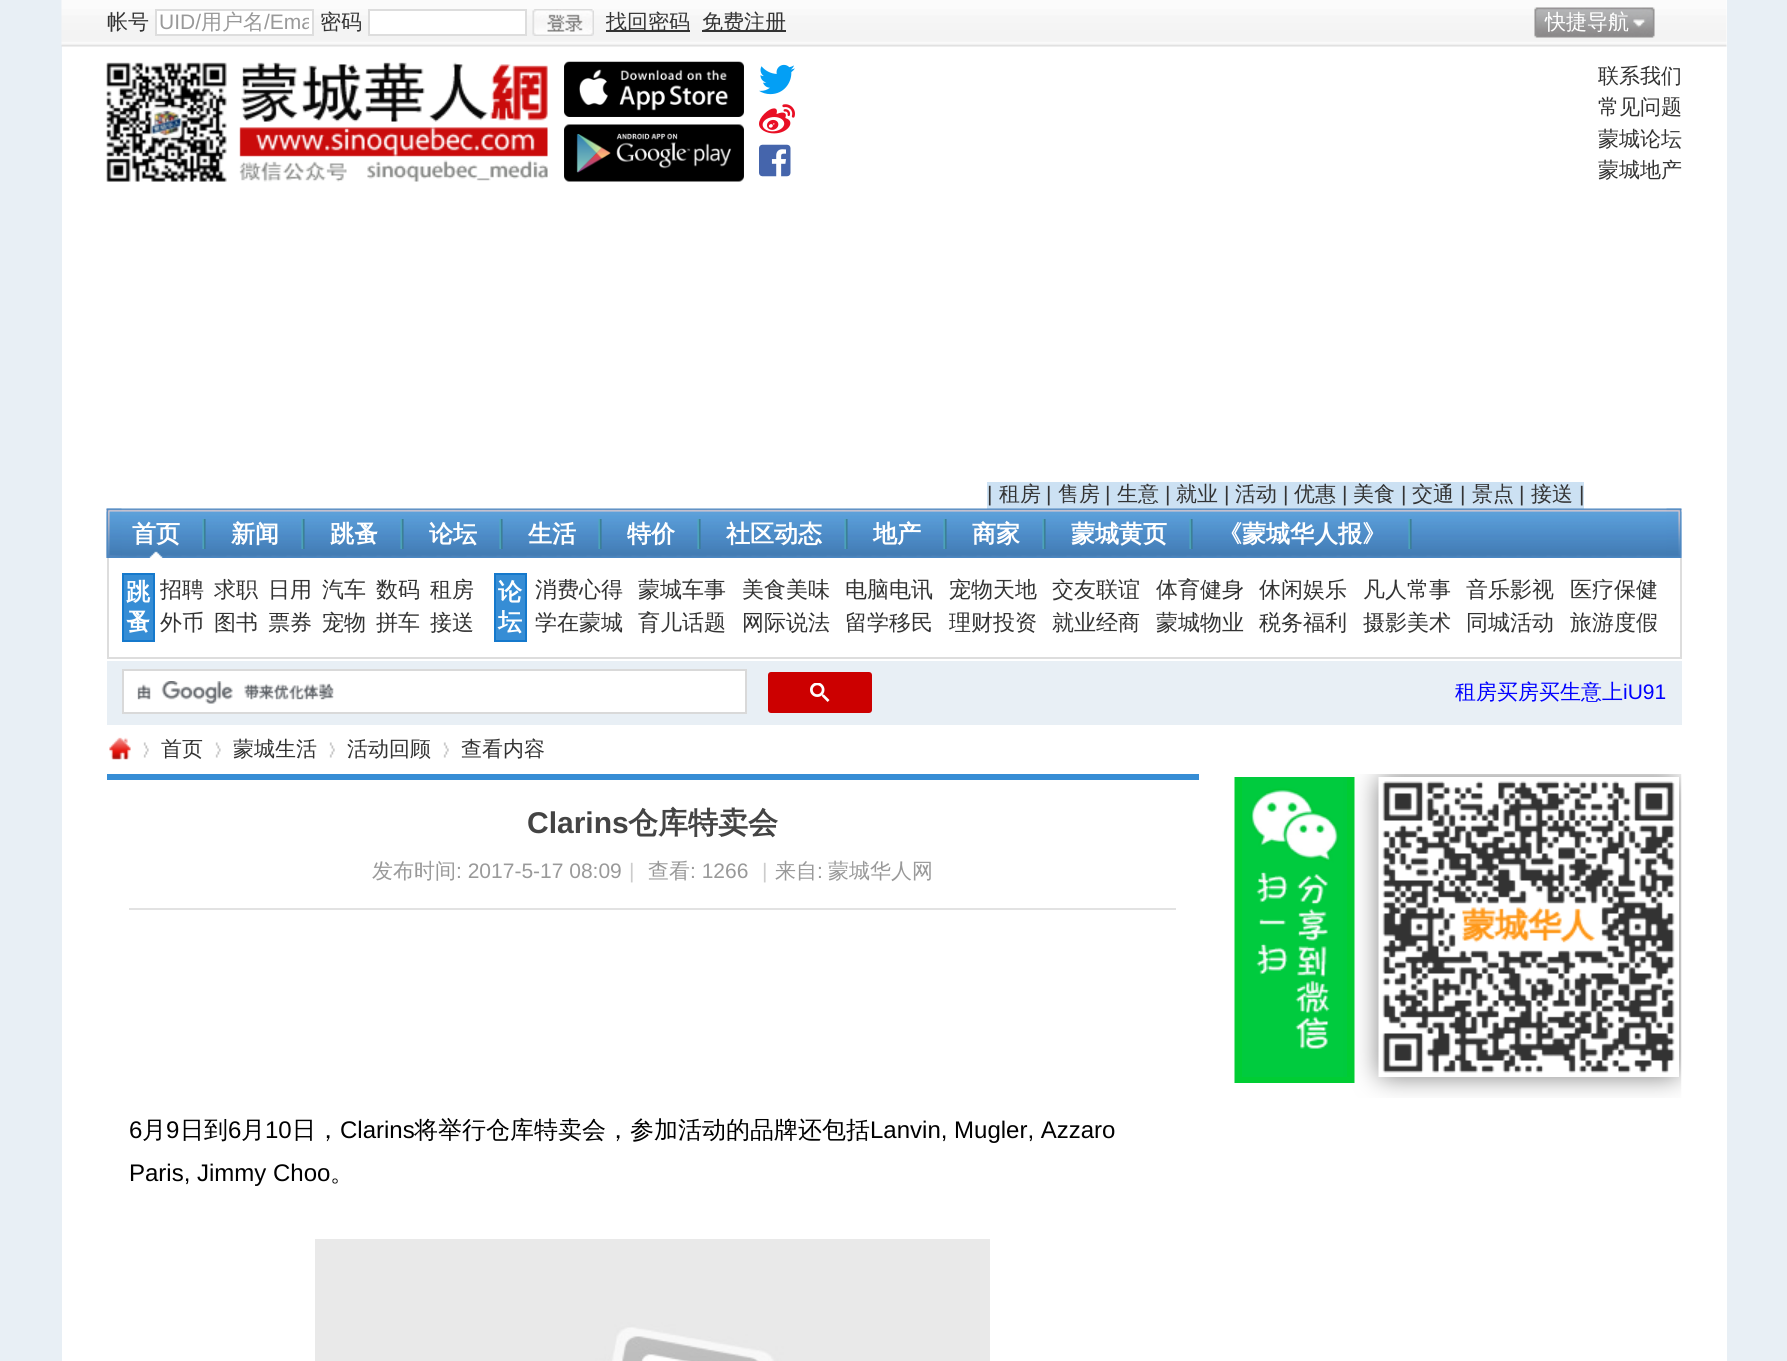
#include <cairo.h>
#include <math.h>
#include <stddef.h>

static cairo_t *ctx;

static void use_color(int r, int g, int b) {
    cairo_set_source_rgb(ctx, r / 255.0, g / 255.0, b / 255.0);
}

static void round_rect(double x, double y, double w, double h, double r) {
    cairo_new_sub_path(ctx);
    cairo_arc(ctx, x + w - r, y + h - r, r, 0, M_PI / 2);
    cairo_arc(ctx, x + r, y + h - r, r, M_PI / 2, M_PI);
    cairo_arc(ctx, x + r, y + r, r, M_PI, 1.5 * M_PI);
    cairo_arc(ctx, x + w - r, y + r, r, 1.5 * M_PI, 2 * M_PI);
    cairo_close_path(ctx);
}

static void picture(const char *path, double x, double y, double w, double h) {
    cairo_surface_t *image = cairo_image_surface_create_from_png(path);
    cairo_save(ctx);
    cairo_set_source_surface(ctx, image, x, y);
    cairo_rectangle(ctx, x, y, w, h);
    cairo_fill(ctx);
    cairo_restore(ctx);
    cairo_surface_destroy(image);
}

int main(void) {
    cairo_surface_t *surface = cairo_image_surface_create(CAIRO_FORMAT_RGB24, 1787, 1361);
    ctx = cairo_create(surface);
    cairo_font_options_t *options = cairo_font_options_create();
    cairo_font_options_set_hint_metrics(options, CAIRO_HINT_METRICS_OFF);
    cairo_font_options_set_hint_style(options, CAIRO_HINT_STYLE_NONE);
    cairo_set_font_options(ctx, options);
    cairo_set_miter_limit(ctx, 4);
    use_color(232, 239, 245);
    cairo_paint(ctx);
    use_color(255, 255, 255);
    cairo_rectangle(ctx, 62, 0, 1665, 1361);
    cairo_fill(ctx);
    picture("img1.png", 61, 0, 1666, 47);
    cairo_select_font_face(ctx, "WenQuanYi Zen Hei Medium", CAIRO_FONT_SLANT_NORMAL, CAIRO_FONT_WEIGHT_NORMAL);
    cairo_set_font_size(ctx, 21);
    use_color(51, 51, 51);
    cairo_move_to(ctx, 107, 29);
    cairo_show_text(ctx, "帐号");
    use_color(255, 255, 255);
    cairo_rectangle(ctx, 156, 10, 157, 25);
    cairo_fill_preserve(ctx);
    use_color(221, 221, 221);
    cairo_stroke(ctx);
    cairo_select_font_face(ctx, "Liberation Sans", CAIRO_FONT_SLANT_NORMAL, CAIRO_FONT_WEIGHT_NORMAL);
    use_color(153, 153, 153);
    cairo_move_to(ctx, 159, 29);
    cairo_show_text(ctx, "UID/");
    cairo_select_font_face(ctx, "WenQuanYi Zen Hei Medium", CAIRO_FONT_SLANT_NORMAL, CAIRO_FONT_WEIGHT_NORMAL);
    cairo_move_to(ctx, 201, 29);
    cairo_show_text(ctx, "用户名");
    cairo_save(ctx);
    cairo_rectangle(ctx, 159, 11, 150, 24);
    cairo_clip(ctx);
    cairo_select_font_face(ctx, "Liberation Sans", CAIRO_FONT_SLANT_NORMAL, CAIRO_FONT_WEIGHT_NORMAL);
    cairo_move_to(ctx, 264, 29);
    cairo_show_text(ctx, "/Ema");
    cairo_restore(ctx);
    use_color(51, 51, 51);
    cairo_move_to(ctx, 320, 29);
    cairo_show_text(ctx, "密码");
    use_color(255, 255, 255);
    cairo_rectangle(ctx, 369, 10, 157, 25);
    cairo_fill_preserve(ctx);
    use_color(221, 221, 221);
    cairo_stroke(ctx);
    picture("img2.png", 532, 9, 62, 27);
    use_color(51, 51, 51);
    cairo_rectangle(ctx, 606, 30, 84, 2);
    cairo_fill(ctx);
    cairo_move_to(ctx, 606, 29);
    cairo_show_text(ctx, "找回密码");
    cairo_rectangle(ctx, 702, 30, 84, 2);
    cairo_fill(ctx);
    cairo_move_to(ctx, 702, 29);
    cairo_show_text(ctx, "免费注册");
    picture("img3.png", 1534, 7, 121, 31);
    use_color(255, 255, 255);
    cairo_move_to(ctx, 1545, 29);
    cairo_show_text(ctx, "快捷导航");
    picture("img4.png", 106, 62, 442, 120);
    picture("img5.png", 564, 61, 180, 56);
    picture("img6.png", 564, 124, 180, 58);
    picture("img7.png", 759, 64, 36, 31);
    picture("img8.png", 759, 104, 36, 30);
    picture("img9.png", 759, 144, 32, 33);
    use_color(51, 51, 51);
    cairo_move_to(ctx, 1598, 83);
    cairo_show_text(ctx, "联系我们");
    cairo_move_to(ctx, 1598, 114);
    cairo_show_text(ctx, "常见问题");
    cairo_move_to(ctx, 1598, 146);
    cairo_show_text(ctx, "蒙城论坛");
    cairo_move_to(ctx, 1598, 177);
    cairo_show_text(ctx, "蒙城地产");
    use_color(204, 225, 243);
    cairo_rectangle(ctx, 987, 482, 597, 27);
    cairo_fill(ctx);
    cairo_select_font_face(ctx, "Liberation Sans", CAIRO_FONT_SLANT_NORMAL, CAIRO_FONT_WEIGHT_NORMAL);
    use_color(51, 51, 51);
    cairo_move_to(ctx, 987, 501);
    cairo_show_text(ctx, "|");
    cairo_select_font_face(ctx, "WenQuanYi Zen Hei Medium", CAIRO_FONT_SLANT_NORMAL, CAIRO_FONT_WEIGHT_NORMAL);
    cairo_move_to(ctx, 999, 501);
    cairo_show_text(ctx, "租房");
    cairo_select_font_face(ctx, "Liberation Sans", CAIRO_FONT_SLANT_NORMAL, CAIRO_FONT_WEIGHT_NORMAL);
    cairo_move_to(ctx, 1046, 501);
    cairo_show_text(ctx, "|");
    cairo_select_font_face(ctx, "WenQuanYi Zen Hei Medium", CAIRO_FONT_SLANT_NORMAL, CAIRO_FONT_WEIGHT_NORMAL);
    cairo_move_to(ctx, 1058, 501);
    cairo_show_text(ctx, "售房");
    cairo_select_font_face(ctx, "Liberation Sans", CAIRO_FONT_SLANT_NORMAL, CAIRO_FONT_WEIGHT_NORMAL);
    cairo_move_to(ctx, 1105, 501);
    cairo_show_text(ctx, "|");
    cairo_select_font_face(ctx, "WenQuanYi Zen Hei Medium", CAIRO_FONT_SLANT_NORMAL, CAIRO_FONT_WEIGHT_NORMAL);
    cairo_move_to(ctx, 1117, 501);
    cairo_show_text(ctx, "生意");
    cairo_select_font_face(ctx, "Liberation Sans", CAIRO_FONT_SLANT_NORMAL, CAIRO_FONT_WEIGHT_NORMAL);
    cairo_move_to(ctx, 1165, 501);
    cairo_show_text(ctx, "|");
    cairo_select_font_face(ctx, "WenQuanYi Zen Hei Medium", CAIRO_FONT_SLANT_NORMAL, CAIRO_FONT_WEIGHT_NORMAL);
    cairo_move_to(ctx, 1176, 501);
    cairo_show_text(ctx, "就业");
    cairo_select_font_face(ctx, "Liberation Sans", CAIRO_FONT_SLANT_NORMAL, CAIRO_FONT_WEIGHT_NORMAL);
    cairo_move_to(ctx, 1224, 501);
    cairo_show_text(ctx, "|");
    cairo_select_font_face(ctx, "WenQuanYi Zen Hei Medium", CAIRO_FONT_SLANT_NORMAL, CAIRO_FONT_WEIGHT_NORMAL);
    cairo_move_to(ctx, 1235, 501);
    cairo_show_text(ctx, "活动");
    cairo_select_font_face(ctx, "Liberation Sans", CAIRO_FONT_SLANT_NORMAL, CAIRO_FONT_WEIGHT_NORMAL);
    cairo_move_to(ctx, 1283, 501);
    cairo_show_text(ctx, "|");
    cairo_select_font_face(ctx, "WenQuanYi Zen Hei Medium", CAIRO_FONT_SLANT_NORMAL, CAIRO_FONT_WEIGHT_NORMAL);
    cairo_move_to(ctx, 1294, 501);
    cairo_show_text(ctx, "优惠");
    cairo_select_font_face(ctx, "Liberation Sans", CAIRO_FONT_SLANT_NORMAL, CAIRO_FONT_WEIGHT_NORMAL);
    cairo_move_to(ctx, 1342, 501);
    cairo_show_text(ctx, "|");
    cairo_select_font_face(ctx, "WenQuanYi Zen Hei Medium", CAIRO_FONT_SLANT_NORMAL, CAIRO_FONT_WEIGHT_NORMAL);
    cairo_move_to(ctx, 1353, 501);
    cairo_show_text(ctx, "美食");
    cairo_select_font_face(ctx, "Liberation Sans", CAIRO_FONT_SLANT_NORMAL, CAIRO_FONT_WEIGHT_NORMAL);
    cairo_move_to(ctx, 1401, 501);
    cairo_show_text(ctx, "|");
    cairo_select_font_face(ctx, "WenQuanYi Zen Hei Medium", CAIRO_FONT_SLANT_NORMAL, CAIRO_FONT_WEIGHT_NORMAL);
    cairo_move_to(ctx, 1412, 501);
    cairo_show_text(ctx, "交通");
    cairo_select_font_face(ctx, "Liberation Sans", CAIRO_FONT_SLANT_NORMAL, CAIRO_FONT_WEIGHT_NORMAL);
    cairo_move_to(ctx, 1460, 501);
    cairo_show_text(ctx, "|");
    cairo_select_font_face(ctx, "WenQuanYi Zen Hei Medium", CAIRO_FONT_SLANT_NORMAL, CAIRO_FONT_WEIGHT_NORMAL);
    cairo_move_to(ctx, 1472, 501);
    cairo_show_text(ctx, "景点");
    cairo_select_font_face(ctx, "Liberation Sans", CAIRO_FONT_SLANT_NORMAL, CAIRO_FONT_WEIGHT_NORMAL);
    cairo_move_to(ctx, 1519, 501);
    cairo_show_text(ctx, "|");
    cairo_select_font_face(ctx, "WenQuanYi Zen Hei Medium", CAIRO_FONT_SLANT_NORMAL, CAIRO_FONT_WEIGHT_NORMAL);
    cairo_move_to(ctx, 1531, 501);
    cairo_show_text(ctx, "接送");
    cairo_select_font_face(ctx, "Liberation Sans", CAIRO_FONT_SLANT_NORMAL, CAIRO_FONT_WEIGHT_NORMAL);
    cairo_move_to(ctx, 1579, 501);
    cairo_show_text(ctx, "|");
    picture("img10.png", 106, 508, 1576, 50);
    picture("img11.png", 106, 508, 16, 50);
    picture("img12.png", 1666, 508, 16, 50);
    picture("img13.png", 202, 519, 4, 30);
    picture("img14.png", 149, 551, 14, 7);
    cairo_select_font_face(ctx, "WenQuanYi Zen Hei", CAIRO_FONT_SLANT_NORMAL, CAIRO_FONT_WEIGHT_BOLD);
    cairo_set_font_size(ctx, 24);
    use_color(255, 255, 255);
    cairo_move_to(ctx, 132, 542);
    cairo_show_text(ctx, "首页");
    picture("img15.png", 301, 519, 4, 30);
    cairo_move_to(ctx, 231, 542);
    cairo_show_text(ctx, "新闻");
    picture("img15.png", 400, 519, 4, 30);
    cairo_move_to(ctx, 330, 542);
    cairo_show_text(ctx, "跳蚤");
    picture("img15.png", 499, 519, 4, 30);
    cairo_move_to(ctx, 429, 542);
    cairo_show_text(ctx, "论坛");
    picture("img16.png", 598, 519, 4, 30);
    cairo_move_to(ctx, 528, 542);
    cairo_show_text(ctx, "生活");
    picture("img16.png", 697, 519, 4, 30);
    cairo_move_to(ctx, 627, 542);
    cairo_show_text(ctx, "特价");
    picture("img15.png", 844, 519, 4, 30);
    cairo_move_to(ctx, 726, 542);
    cairo_show_text(ctx, "社区动态");
    picture("img15.png", 943, 519, 4, 30);
    cairo_move_to(ctx, 873, 542);
    cairo_show_text(ctx, "地产");
    picture("img17.png", 1042, 519, 4, 30);
    cairo_move_to(ctx, 972, 542);
    cairo_show_text(ctx, "商家");
    picture("img17.png", 1189, 519, 4, 30);
    cairo_move_to(ctx, 1071, 542);
    cairo_show_text(ctx, "蒙城黄页");
    picture("img15.png", 1408, 519, 4, 30);
    cairo_move_to(ctx, 1218, 542);
    cairo_show_text(ctx, "《蒙城华人报》");
    use_color(221, 221, 221);
    cairo_rectangle(ctx, 1680, 558, 2, 101);
    cairo_fill(ctx);
    cairo_rectangle(ctx, 107, 657, 1575, 2);
    cairo_fill(ctx);
    cairo_rectangle(ctx, 107, 558, 2, 101);
    cairo_fill(ctx);
    use_color(54, 141, 213);
    cairo_rectangle(ctx, 123, 574, 31, 67);
    cairo_fill_preserve(ctx);
    use_color(21, 121, 204);
    cairo_stroke(ctx);
    use_color(255, 255, 255);
    cairo_move_to(ctx, 126, 600);
    cairo_show_text(ctx, "跳");
    cairo_move_to(ctx, 126, 630);
    cairo_show_text(ctx, "蚤");
    cairo_select_font_face(ctx, "WenQuanYi Zen Hei Medium", CAIRO_FONT_SLANT_NORMAL, CAIRO_FONT_WEIGHT_NORMAL);
    cairo_set_font_size(ctx, 22);
    use_color(51, 51, 51);
    cairo_move_to(ctx, 160, 597);
    cairo_show_text(ctx, "招聘");
    cairo_move_to(ctx, 214, 597);
    cairo_show_text(ctx, "求职");
    cairo_move_to(ctx, 268, 597);
    cairo_show_text(ctx, "日用");
    cairo_move_to(ctx, 322, 597);
    cairo_show_text(ctx, "汽车");
    cairo_move_to(ctx, 376, 597);
    cairo_show_text(ctx, "数码");
    cairo_move_to(ctx, 430, 597);
    cairo_show_text(ctx, "租房");
    cairo_move_to(ctx, 160, 630);
    cairo_show_text(ctx, "外币");
    cairo_move_to(ctx, 214, 630);
    cairo_show_text(ctx, "图书");
    cairo_move_to(ctx, 268, 630);
    cairo_show_text(ctx, "票券");
    cairo_move_to(ctx, 322, 630);
    cairo_show_text(ctx, "宠物");
    cairo_move_to(ctx, 376, 630);
    cairo_show_text(ctx, "拼车");
    cairo_move_to(ctx, 430, 630);
    cairo_show_text(ctx, "接送");
    use_color(54, 141, 213);
    cairo_rectangle(ctx, 495, 574, 31, 67);
    cairo_fill_preserve(ctx);
    use_color(21, 121, 204);
    cairo_stroke(ctx);
    cairo_select_font_face(ctx, "WenQuanYi Zen Hei", CAIRO_FONT_SLANT_NORMAL, CAIRO_FONT_WEIGHT_BOLD);
    cairo_set_font_size(ctx, 24);
    use_color(255, 255, 255);
    cairo_move_to(ctx, 498, 600);
    cairo_show_text(ctx, "论");
    cairo_move_to(ctx, 498, 630);
    cairo_show_text(ctx, "坛");
    cairo_select_font_face(ctx, "WenQuanYi Zen Hei Medium", CAIRO_FONT_SLANT_NORMAL, CAIRO_FONT_WEIGHT_NORMAL);
    cairo_set_font_size(ctx, 22);
    use_color(51, 51, 51);
    cairo_move_to(ctx, 535, 597);
    cairo_show_text(ctx, "消费心得");
    cairo_move_to(ctx, 638, 597);
    cairo_show_text(ctx, "蒙城车事");
    cairo_move_to(ctx, 742, 597);
    cairo_show_text(ctx, "美食美味");
    cairo_move_to(ctx, 845, 597);
    cairo_show_text(ctx, "电脑电讯");
    cairo_move_to(ctx, 949, 597);
    cairo_show_text(ctx, "宠物天地");
    cairo_move_to(ctx, 1052, 597);
    cairo_show_text(ctx, "交友联谊");
    cairo_move_to(ctx, 1156, 597);
    cairo_show_text(ctx, "体育健身");
    cairo_move_to(ctx, 1259, 597);
    cairo_show_text(ctx, "休闲娱乐");
    cairo_move_to(ctx, 1363, 597);
    cairo_show_text(ctx, "凡人常事");
    cairo_move_to(ctx, 1466, 597);
    cairo_show_text(ctx, "音乐影视");
    cairo_move_to(ctx, 1570, 597);
    cairo_show_text(ctx, "医疗保健");
    cairo_move_to(ctx, 535, 630);
    cairo_show_text(ctx, "学在蒙城");
    cairo_move_to(ctx, 638, 630);
    cairo_show_text(ctx, "育儿话题");
    cairo_move_to(ctx, 742, 630);
    cairo_show_text(ctx, "网际说法");
    cairo_move_to(ctx, 845, 630);
    cairo_show_text(ctx, "留学移民");
    cairo_move_to(ctx, 949, 630);
    cairo_show_text(ctx, "理财投资");
    cairo_move_to(ctx, 1052, 630);
    cairo_show_text(ctx, "就业经商");
    cairo_move_to(ctx, 1156, 630);
    cairo_show_text(ctx, "蒙城物业");
    cairo_move_to(ctx, 1259, 630);
    cairo_show_text(ctx, "税务福利");
    cairo_move_to(ctx, 1363, 630);
    cairo_show_text(ctx, "摄影美术");
    cairo_move_to(ctx, 1466, 630);
    cairo_show_text(ctx, "同城活动");
    cairo_move_to(ctx, 1570, 630);
    cairo_show_text(ctx, "旅游度假");
    use_color(232, 239, 245);
    cairo_rectangle(ctx, 107, 661, 1575, 64);
    cairo_fill(ctx);
    use_color(255, 255, 255);
    cairo_rectangle(ctx, 123, 670, 623, 43);
    cairo_fill_preserve(ctx);
    use_color(217, 217, 217);
    cairo_stroke(ctx);
    picture("img18.png", 137, 681, 197, 23);
    use_color(204, 0, 0);
    round_rect(769, 673, 102, 39, 2);
    cairo_fill_preserve(ctx);
    cairo_stroke(ctx);
    picture("img19.png", 810, 683, 20, 19);
    cairo_set_font_size(ctx, 21);
    use_color(0, 0, 255);
    cairo_move_to(ctx, 1455, 699);
    cairo_show_text(ctx, "租房买房买生意上");
    cairo_select_font_face(ctx, "Liberation Sans", CAIRO_FONT_SLANT_NORMAL, CAIRO_FONT_WEIGHT_NORMAL);
    cairo_move_to(ctx, 1623, 699);
    cairo_show_text(ctx, "iU91");
    picture("img20.png", 109, 737, 22, 23);
    picture("img21.png", 143, 742, 6, 16);
    cairo_select_font_face(ctx, "WenQuanYi Zen Hei Medium", CAIRO_FONT_SLANT_NORMAL, CAIRO_FONT_WEIGHT_NORMAL);
    use_color(51, 51, 51);
    cairo_move_to(ctx, 161, 756);
    cairo_show_text(ctx, "首页");
    picture("img21.png", 215, 742, 6, 16);
    cairo_move_to(ctx, 233, 756);
    cairo_show_text(ctx, "蒙城生活");
    picture("img22.png", 329, 742, 6, 16);
    cairo_move_to(ctx, 347, 756);
    cairo_show_text(ctx, "活动回顾");
    picture("img22.png", 443, 742, 6, 16);
    cairo_move_to(ctx, 461, 756);
    cairo_show_text(ctx, "查看内容");
    use_color(54, 141, 213);
    cairo_rectangle(ctx, 107, 774, 1092, 6);
    cairo_fill(ctx);
    use_color(226, 226, 226);
    cairo_rectangle(ctx, 129, 908, 1047, 2);
    cairo_fill(ctx);
    cairo_select_font_face(ctx, "Liberation Sans", CAIRO_FONT_SLANT_NORMAL, CAIRO_FONT_WEIGHT_BOLD);
    cairo_set_font_size(ctx, 30);
    use_color(68, 68, 68);
    cairo_move_to(ctx, 527, 833);
    cairo_show_text(ctx, "Clarins");
    cairo_select_font_face(ctx, "WenQuanYi Zen Hei", CAIRO_FONT_SLANT_NORMAL, CAIRO_FONT_WEIGHT_BOLD);
    cairo_move_to(ctx, 628, 833);
    cairo_show_text(ctx, "仓库特卖会");
    cairo_select_font_face(ctx, "WenQuanYi Zen Hei Medium", CAIRO_FONT_SLANT_NORMAL, CAIRO_FONT_WEIGHT_NORMAL);
    cairo_set_font_size(ctx, 21);
    use_color(153, 153, 153);
    cairo_move_to(ctx, 372, 878);
    cairo_show_text(ctx, "发布时间");
    cairo_select_font_face(ctx, "Liberation Sans", CAIRO_FONT_SLANT_NORMAL, CAIRO_FONT_WEIGHT_NORMAL);
    cairo_move_to(ctx, 456, 878);
    cairo_show_text(ctx, ": 2017-5-17 08:09");
    use_color(204, 204, 204);
    cairo_move_to(ctx, 629, 878);
    cairo_show_text(ctx, "|");
    cairo_select_font_face(ctx, "WenQuanYi Zen Hei Medium", CAIRO_FONT_SLANT_NORMAL, CAIRO_FONT_WEIGHT_NORMAL);
    use_color(153, 153, 153);
    cairo_move_to(ctx, 648, 878);
    cairo_show_text(ctx, "查看");
    cairo_select_font_face(ctx, "Liberation Sans", CAIRO_FONT_SLANT_NORMAL, CAIRO_FONT_WEIGHT_NORMAL);
    cairo_move_to(ctx, 690, 878);
    cairo_show_text(ctx, ": 1266");
    use_color(204, 204, 204);
    cairo_move_to(ctx, 762, 878);
    cairo_show_text(ctx, "|");
    cairo_select_font_face(ctx, "WenQuanYi Zen Hei Medium", CAIRO_FONT_SLANT_NORMAL, CAIRO_FONT_WEIGHT_NORMAL);
    use_color(153, 153, 153);
    cairo_move_to(ctx, 775, 878);
    cairo_show_text(ctx, "来自");
    cairo_select_font_face(ctx, "Liberation Sans", CAIRO_FONT_SLANT_NORMAL, CAIRO_FONT_WEIGHT_NORMAL);
    cairo_move_to(ctx, 817, 878);
    cairo_show_text(ctx, ":");
    cairo_select_font_face(ctx, "WenQuanYi Zen Hei Medium", CAIRO_FONT_SLANT_NORMAL, CAIRO_FONT_WEIGHT_NORMAL);
    cairo_move_to(ctx, 828, 878);
    cairo_show_text(ctx, "蒙城华人网");
    cairo_select_font_face(ctx, "Liberation Sans", CAIRO_FONT_SLANT_NORMAL, CAIRO_FONT_WEIGHT_NORMAL);
    cairo_set_font_size(ctx, 24);
    use_color(0, 0, 0);
    cairo_move_to(ctx, 129, 1138);
    cairo_show_text(ctx, "6");
    cairo_select_font_face(ctx, "WenQuanYi Zen Hei Medium", CAIRO_FONT_SLANT_NORMAL, CAIRO_FONT_WEIGHT_NORMAL);
    cairo_move_to(ctx, 142, 1138);
    cairo_show_text(ctx, "月");
    cairo_select_font_face(ctx, "Liberation Sans", CAIRO_FONT_SLANT_NORMAL, CAIRO_FONT_WEIGHT_NORMAL);
    cairo_move_to(ctx, 166, 1138);
    cairo_show_text(ctx, "9");
    cairo_select_font_face(ctx, "WenQuanYi Zen Hei Medium", CAIRO_FONT_SLANT_NORMAL, CAIRO_FONT_WEIGHT_NORMAL);
    cairo_move_to(ctx, 180, 1138);
    cairo_show_text(ctx, "日到");
    cairo_select_font_face(ctx, "Liberation Sans", CAIRO_FONT_SLANT_NORMAL, CAIRO_FONT_WEIGHT_NORMAL);
    cairo_move_to(ctx, 228, 1138);
    cairo_show_text(ctx, "6");
    cairo_select_font_face(ctx, "WenQuanYi Zen Hei Medium", CAIRO_FONT_SLANT_NORMAL, CAIRO_FONT_WEIGHT_NORMAL);
    cairo_move_to(ctx, 241, 1138);
    cairo_show_text(ctx, "月");
    cairo_select_font_face(ctx, "Liberation Sans", CAIRO_FONT_SLANT_NORMAL, CAIRO_FONT_WEIGHT_NORMAL);
    cairo_move_to(ctx, 265, 1138);
    cairo_show_text(ctx, "10");
    cairo_select_font_face(ctx, "WenQuanYi Zen Hei Medium", CAIRO_FONT_SLANT_NORMAL, CAIRO_FONT_WEIGHT_NORMAL);
    cairo_move_to(ctx, 292, 1138);
    cairo_show_text(ctx, "日，");
    cairo_select_font_face(ctx, "Liberation Sans", CAIRO_FONT_SLANT_NORMAL, CAIRO_FONT_WEIGHT_NORMAL);
    cairo_move_to(ctx, 340, 1138);
    cairo_show_text(ctx, "Clarins");
    cairo_select_font_face(ctx, "WenQuanYi Zen Hei Medium", CAIRO_FONT_SLANT_NORMAL, CAIRO_FONT_WEIGHT_NORMAL);
    cairo_move_to(ctx, 414, 1138);
    cairo_show_text(ctx, "将举行仓库特卖会，参加活动的品牌还包括");
    cairo_select_font_face(ctx, "Liberation Sans", CAIRO_FONT_SLANT_NORMAL, CAIRO_FONT_WEIGHT_NORMAL);
    cairo_move_to(ctx, 870, 1138);
    cairo_show_text(ctx, "Lanvin, Mugler, Azzaro");
    cairo_move_to(ctx, 129, 1181);
    cairo_show_text(ctx, "Paris, Jimmy Choo");
    cairo_select_font_face(ctx, "WenQuanYi Zen Hei Medium", CAIRO_FONT_SLANT_NORMAL, CAIRO_FONT_WEIGHT_NORMAL);
    cairo_move_to(ctx, 330, 1181);
    cairo_show_text(ctx, "。");
    picture("img23.png", 315, 1239, 675, 122);
    picture("img24.png", 1234, 774, 448, 324);
    cairo_surface_write_to_png(surface, "result.png");
    cairo_font_options_destroy(options);
    cairo_destroy(ctx);
    cairo_surface_destroy(surface);
    return 0;
}
